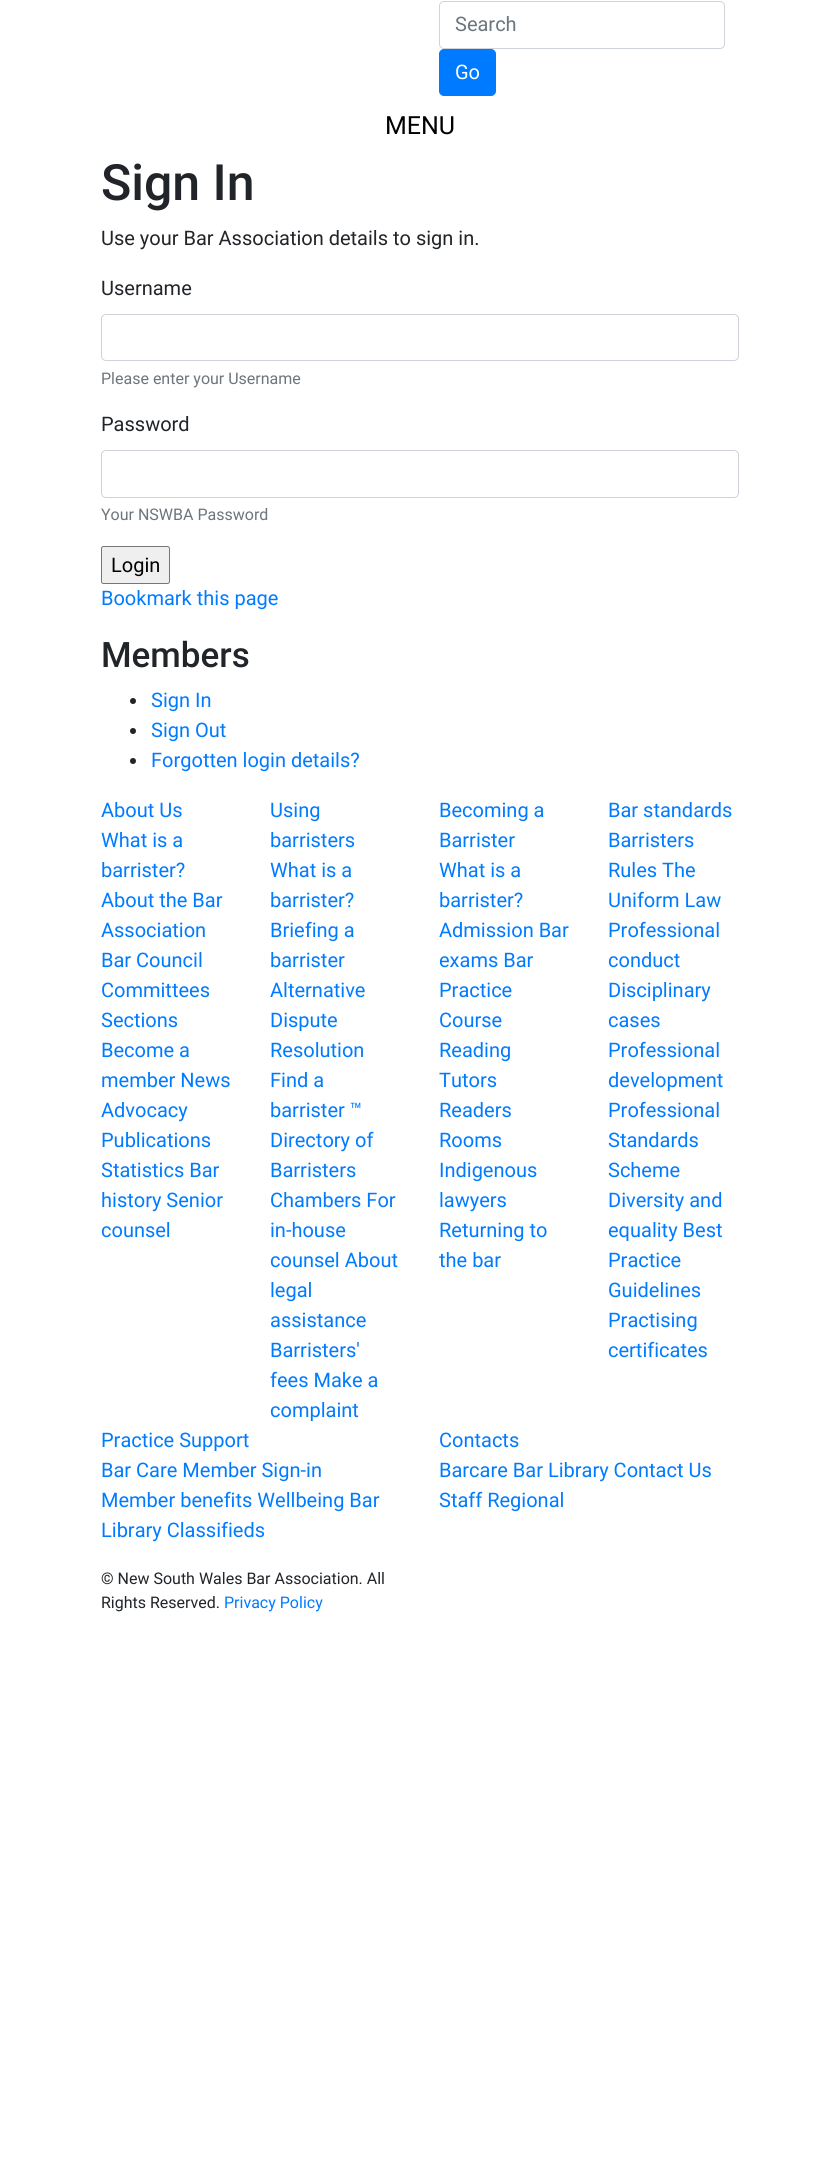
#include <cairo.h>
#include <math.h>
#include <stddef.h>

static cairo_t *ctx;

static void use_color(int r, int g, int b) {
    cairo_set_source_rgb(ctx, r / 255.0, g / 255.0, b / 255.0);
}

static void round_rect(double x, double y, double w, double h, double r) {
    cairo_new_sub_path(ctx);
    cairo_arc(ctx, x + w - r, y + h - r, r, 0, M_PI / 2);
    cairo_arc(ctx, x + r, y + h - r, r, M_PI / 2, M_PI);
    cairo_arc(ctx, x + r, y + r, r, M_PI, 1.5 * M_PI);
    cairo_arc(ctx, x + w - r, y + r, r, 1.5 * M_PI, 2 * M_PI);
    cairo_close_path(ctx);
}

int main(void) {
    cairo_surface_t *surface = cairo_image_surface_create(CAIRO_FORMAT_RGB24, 839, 2164);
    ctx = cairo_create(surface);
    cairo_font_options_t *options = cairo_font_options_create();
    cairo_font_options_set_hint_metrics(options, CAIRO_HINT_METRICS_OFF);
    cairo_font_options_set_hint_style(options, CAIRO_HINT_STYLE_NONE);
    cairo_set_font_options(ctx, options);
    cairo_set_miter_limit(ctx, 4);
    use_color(255, 255, 255);
    cairo_paint(ctx);
    round_rect(439.5, 1.5, 285, 47, 4.5);
    use_color(206, 212, 218);
    cairo_set_line_width(ctx, 1);
    cairo_stroke(ctx);
    cairo_select_font_face(ctx, "Roboto", CAIRO_FONT_SLANT_NORMAL, CAIRO_FONT_WEIGHT_NORMAL);
    cairo_set_font_size(ctx, 20);
    use_color(108, 117, 125);
    cairo_move_to(ctx, 455, 31);
    cairo_show_text(ctx, "Search");
    use_color(0, 123, 255);
    round_rect(439.5, 49.5, 56, 46, 4.5);
    cairo_fill_preserve(ctx);
    cairo_stroke(ctx);
    use_color(255, 255, 255);
    cairo_move_to(ctx, 455, 79);
    cairo_show_text(ctx, "Go");
    cairo_set_font_size(ctx, 25);
    use_color(0, 0, 0);
    cairo_move_to(ctx, 385, 134);
    cairo_show_text(ctx, "MENU");
    cairo_select_font_face(ctx, "Roboto Medium", CAIRO_FONT_SLANT_NORMAL, CAIRO_FONT_WEIGHT_NORMAL);
    cairo_set_font_size(ctx, 50);
    use_color(33, 37, 41);
    cairo_move_to(ctx, 101, 200);
    cairo_show_text(ctx, "Sign In");
    cairo_select_font_face(ctx, "Roboto", CAIRO_FONT_SLANT_NORMAL, CAIRO_FONT_WEIGHT_NORMAL);
    cairo_set_font_size(ctx, 20);
    cairo_move_to(ctx, 101, 245);
    cairo_show_text(ctx, "Use your Bar Association details to sign in.");
    cairo_move_to(ctx, 101, 295);
    cairo_show_text(ctx, "Username");
    round_rect(101.5, 314.5, 637, 46, 4.5);
    use_color(206, 212, 218);
    cairo_stroke(ctx);
    cairo_set_font_size(ctx, 16);
    use_color(108, 117, 125);
    cairo_move_to(ctx, 101, 384);
    cairo_show_text(ctx, "Please enter your Username");
    cairo_set_font_size(ctx, 20);
    use_color(33, 37, 41);
    cairo_move_to(ctx, 101, 431);
    cairo_show_text(ctx, "Password");
    round_rect(101.5, 450.5, 637, 47, 4.5);
    use_color(206, 212, 218);
    cairo_stroke(ctx);
    cairo_set_font_size(ctx, 16);
    use_color(108, 117, 125);
    cairo_move_to(ctx, 101, 520);
    cairo_show_text(ctx, "Your NSWBA Password");
    use_color(239, 239, 239);
    round_rect(101.5, 546.5, 68, 37, 2);
    cairo_fill_preserve(ctx);
    use_color(118, 118, 118);
    cairo_stroke(ctx);
    cairo_set_font_size(ctx, 20);
    use_color(0, 0, 0);
    cairo_move_to(ctx, 111, 572);
    cairo_show_text(ctx, "Login");
    use_color(0, 123, 255);
    cairo_move_to(ctx, 101, 605);
    cairo_show_text(ctx, "Bookmark this page");
    cairo_select_font_face(ctx, "Roboto Medium", CAIRO_FONT_SLANT_NORMAL, CAIRO_FONT_WEIGHT_NORMAL);
    cairo_set_font_size(ctx, 35);
    use_color(33, 37, 41);
    cairo_move_to(ctx, 101, 667);
    cairo_show_text(ctx, "Members");
    cairo_new_path(ctx);
    cairo_arc(ctx, 133, 701, 3, 0, 2 * M_PI);
    cairo_fill(ctx);
    cairo_select_font_face(ctx, "Roboto", CAIRO_FONT_SLANT_NORMAL, CAIRO_FONT_WEIGHT_NORMAL);
    cairo_set_font_size(ctx, 20);
    use_color(0, 123, 255);
    cairo_move_to(ctx, 151, 707);
    cairo_show_text(ctx, "Sign In");
    use_color(33, 37, 41);
    cairo_new_path(ctx);
    cairo_arc(ctx, 133, 731, 3, 0, 2 * M_PI);
    cairo_fill(ctx);
    use_color(0, 123, 255);
    cairo_move_to(ctx, 151, 737);
    cairo_show_text(ctx, "Sign Out");
    use_color(33, 37, 41);
    cairo_new_path(ctx);
    cairo_arc(ctx, 133, 761, 3, 0, 2 * M_PI);
    cairo_fill(ctx);
    use_color(0, 123, 255);
    cairo_move_to(ctx, 151, 767);
    cairo_show_text(ctx, "Forgotten login details?");
    cairo_move_to(ctx, 101, 817);
    cairo_show_text(ctx, "About Us");
    cairo_move_to(ctx, 101, 847);
    cairo_show_text(ctx, "What is a");
    cairo_move_to(ctx, 101, 877);
    cairo_show_text(ctx, "barrister?");
    cairo_move_to(ctx, 101, 907);
    cairo_show_text(ctx, "About the Bar");
    cairo_move_to(ctx, 101, 937);
    cairo_show_text(ctx, "Association");
    cairo_move_to(ctx, 101, 967);
    cairo_show_text(ctx, "Bar Council");
    cairo_move_to(ctx, 101, 997);
    cairo_show_text(ctx, "Committees");
    cairo_move_to(ctx, 101, 1027);
    cairo_show_text(ctx, "Sections");
    cairo_move_to(ctx, 101, 1057);
    cairo_show_text(ctx, "Become a");
    cairo_move_to(ctx, 101, 1087);
    cairo_show_text(ctx, "member News");
    cairo_move_to(ctx, 101, 1117);
    cairo_show_text(ctx, "Advocacy");
    cairo_move_to(ctx, 101, 1147);
    cairo_show_text(ctx, "Publications");
    cairo_move_to(ctx, 101, 1177);
    cairo_show_text(ctx, "Statistics Bar");
    cairo_move_to(ctx, 101, 1207);
    cairo_show_text(ctx, "history Senior");
    cairo_move_to(ctx, 101, 1237);
    cairo_show_text(ctx, "counsel");
    cairo_move_to(ctx, 270, 817);
    cairo_show_text(ctx, "Using");
    cairo_move_to(ctx, 270, 847);
    cairo_show_text(ctx, "barristers");
    cairo_move_to(ctx, 270, 877);
    cairo_show_text(ctx, "What is a");
    cairo_move_to(ctx, 270, 907);
    cairo_show_text(ctx, "barrister?");
    cairo_move_to(ctx, 270, 937);
    cairo_show_text(ctx, "Briefing a");
    cairo_move_to(ctx, 270, 967);
    cairo_show_text(ctx, "barrister");
    cairo_move_to(ctx, 270, 997);
    cairo_show_text(ctx, "Alternative");
    cairo_move_to(ctx, 270, 1027);
    cairo_show_text(ctx, "Dispute");
    cairo_move_to(ctx, 270, 1057);
    cairo_show_text(ctx, "Resolution");
    cairo_move_to(ctx, 270, 1087);
    cairo_show_text(ctx, "Find a");
    cairo_move_to(ctx, 270, 1117);
    cairo_show_text(ctx, "barrister ™");
    cairo_move_to(ctx, 270, 1147);
    cairo_show_text(ctx, "Directory of");
    cairo_move_to(ctx, 270, 1177);
    cairo_show_text(ctx, "Barristers");
    cairo_move_to(ctx, 270, 1207);
    cairo_show_text(ctx, "Chambers For");
    cairo_move_to(ctx, 270, 1237);
    cairo_show_text(ctx, "in-house");
    cairo_move_to(ctx, 270, 1267);
    cairo_show_text(ctx, "counsel About");
    cairo_move_to(ctx, 270, 1297);
    cairo_show_text(ctx, "legal");
    cairo_move_to(ctx, 270, 1327);
    cairo_show_text(ctx, "assistance");
    cairo_move_to(ctx, 270, 1357);
    cairo_show_text(ctx, "Barristers'");
    cairo_move_to(ctx, 270, 1387);
    cairo_show_text(ctx, "fees Make a");
    cairo_move_to(ctx, 270, 1417);
    cairo_show_text(ctx, "complaint");
    cairo_move_to(ctx, 439, 817);
    cairo_show_text(ctx, "Becoming a");
    cairo_move_to(ctx, 439, 847);
    cairo_show_text(ctx, "Barrister");
    cairo_move_to(ctx, 439, 877);
    cairo_show_text(ctx, "What is a");
    cairo_move_to(ctx, 439, 907);
    cairo_show_text(ctx, "barrister?");
    cairo_move_to(ctx, 439, 937);
    cairo_show_text(ctx, "Admission Bar");
    cairo_move_to(ctx, 439, 967);
    cairo_show_text(ctx, "exams Bar");
    cairo_move_to(ctx, 439, 997);
    cairo_show_text(ctx, "Practice");
    cairo_move_to(ctx, 439, 1027);
    cairo_show_text(ctx, "Course");
    cairo_move_to(ctx, 439, 1057);
    cairo_show_text(ctx, "Reading");
    cairo_move_to(ctx, 439, 1087);
    cairo_show_text(ctx, "Tutors");
    cairo_move_to(ctx, 439, 1117);
    cairo_show_text(ctx, "Readers");
    cairo_move_to(ctx, 439, 1147);
    cairo_show_text(ctx, "Rooms");
    cairo_move_to(ctx, 439, 1177);
    cairo_show_text(ctx, "Indigenous");
    cairo_move_to(ctx, 439, 1207);
    cairo_show_text(ctx, "lawyers");
    cairo_move_to(ctx, 439, 1237);
    cairo_show_text(ctx, "Returning to");
    cairo_move_to(ctx, 439, 1267);
    cairo_show_text(ctx, "the bar");
    cairo_move_to(ctx, 608, 817);
    cairo_show_text(ctx, "Bar standards");
    cairo_move_to(ctx, 608, 847);
    cairo_show_text(ctx, "Barristers");
    cairo_move_to(ctx, 608, 877);
    cairo_show_text(ctx, "Rules The");
    cairo_move_to(ctx, 608, 907);
    cairo_show_text(ctx, "Uniform Law");
    cairo_move_to(ctx, 608, 937);
    cairo_show_text(ctx, "Professional");
    cairo_move_to(ctx, 608, 967);
    cairo_show_text(ctx, "conduct");
    cairo_move_to(ctx, 608, 997);
    cairo_show_text(ctx, "Disciplinary");
    cairo_move_to(ctx, 608, 1027);
    cairo_show_text(ctx, "cases");
    cairo_move_to(ctx, 608, 1057);
    cairo_show_text(ctx, "Professional");
    cairo_move_to(ctx, 608, 1087);
    cairo_show_text(ctx, "development");
    cairo_move_to(ctx, 608, 1117);
    cairo_show_text(ctx, "Professional");
    cairo_move_to(ctx, 608, 1147);
    cairo_show_text(ctx, "Standards");
    cairo_move_to(ctx, 608, 1177);
    cairo_show_text(ctx, "Scheme");
    cairo_move_to(ctx, 608, 1207);
    cairo_show_text(ctx, "Diversity and");
    cairo_move_to(ctx, 608, 1237);
    cairo_show_text(ctx, "equality Best");
    cairo_move_to(ctx, 608, 1267);
    cairo_show_text(ctx, "Practice");
    cairo_move_to(ctx, 608, 1297);
    cairo_show_text(ctx, "Guidelines");
    cairo_move_to(ctx, 608, 1327);
    cairo_show_text(ctx, "Practising");
    cairo_move_to(ctx, 608, 1357);
    cairo_show_text(ctx, "certificates");
    cairo_move_to(ctx, 101, 1447);
    cairo_show_text(ctx, "Practice Support");
    cairo_move_to(ctx, 101, 1477);
    cairo_show_text(ctx, "Bar Care Member Sign-in");
    cairo_move_to(ctx, 101, 1507);
    cairo_show_text(ctx, "Member benefits Wellbeing Bar");
    cairo_move_to(ctx, 101, 1537);
    cairo_show_text(ctx, "Library Classifieds");
    cairo_move_to(ctx, 439, 1447);
    cairo_show_text(ctx, "Contacts");
    cairo_move_to(ctx, 439, 1477);
    cairo_show_text(ctx, "Barcare Bar Library Contact Us");
    cairo_move_to(ctx, 439, 1507);
    cairo_show_text(ctx, "Staff Regional");
    cairo_set_font_size(ctx, 16);
    use_color(33, 37, 41);
    cairo_move_to(ctx, 101, 1584);
    cairo_show_text(ctx, "© New South Wales Bar Association. All");
    cairo_move_to(ctx, 101, 1608);
    cairo_show_text(ctx, "Rights Reserved.");
    use_color(0, 123, 255);
    cairo_move_to(ctx, 224, 1608);
    cairo_show_text(ctx, "Privacy Policy");
    cairo_surface_write_to_png(surface, "result.png");
    cairo_font_options_destroy(options);
    cairo_destroy(ctx);
    cairo_surface_destroy(surface);
    return 0;
}
